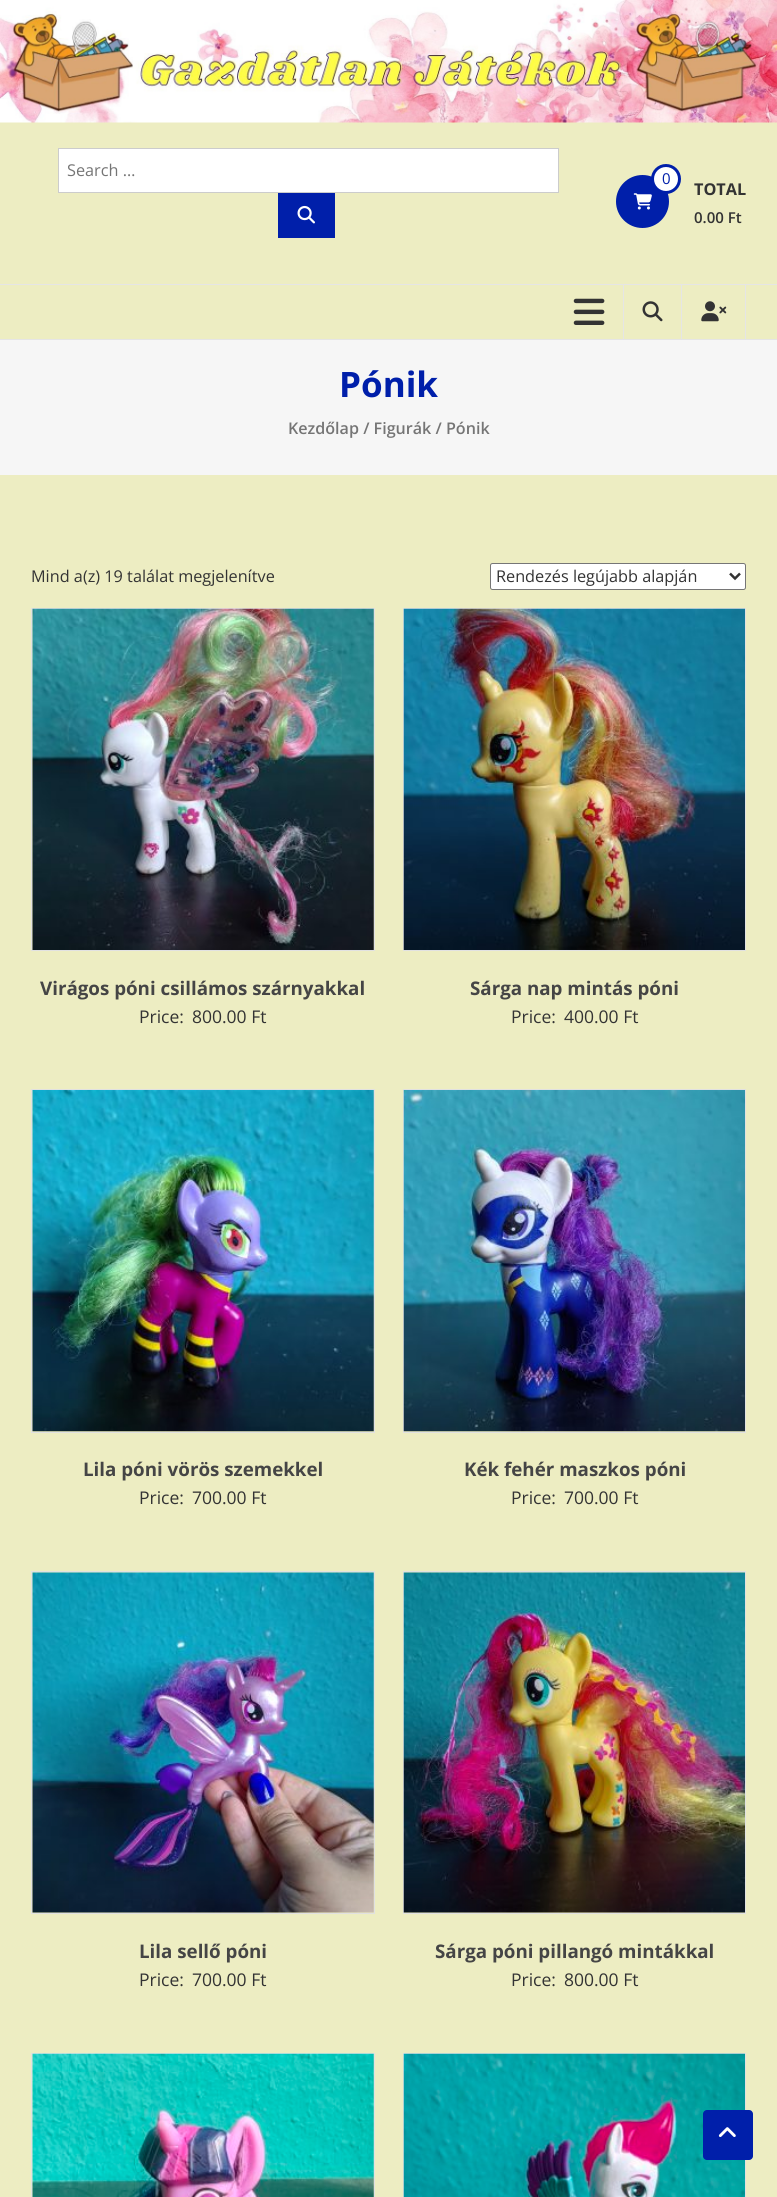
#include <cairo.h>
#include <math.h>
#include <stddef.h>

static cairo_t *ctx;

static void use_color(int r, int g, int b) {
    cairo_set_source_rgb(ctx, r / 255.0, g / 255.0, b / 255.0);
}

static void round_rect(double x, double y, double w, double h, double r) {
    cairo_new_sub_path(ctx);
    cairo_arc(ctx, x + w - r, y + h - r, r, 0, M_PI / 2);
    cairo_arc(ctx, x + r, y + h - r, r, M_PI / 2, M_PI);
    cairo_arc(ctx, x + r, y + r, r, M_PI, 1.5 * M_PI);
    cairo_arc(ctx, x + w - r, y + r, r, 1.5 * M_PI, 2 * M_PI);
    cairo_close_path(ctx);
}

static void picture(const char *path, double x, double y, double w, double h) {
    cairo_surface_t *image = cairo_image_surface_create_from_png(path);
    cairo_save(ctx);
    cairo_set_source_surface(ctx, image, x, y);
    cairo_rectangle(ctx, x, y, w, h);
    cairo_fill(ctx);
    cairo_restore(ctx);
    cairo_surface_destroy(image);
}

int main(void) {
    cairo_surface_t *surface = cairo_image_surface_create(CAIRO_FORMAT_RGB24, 777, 2197);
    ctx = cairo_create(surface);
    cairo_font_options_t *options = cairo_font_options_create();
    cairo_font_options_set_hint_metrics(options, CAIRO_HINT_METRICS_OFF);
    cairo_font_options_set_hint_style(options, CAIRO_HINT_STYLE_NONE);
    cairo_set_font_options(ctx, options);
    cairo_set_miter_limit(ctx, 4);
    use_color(237, 237, 194);
    cairo_paint(ctx);
    picture("img1.png", 0, 0, 777, 123);
    use_color(255, 255, 255);
    cairo_rectangle(ctx, 58.5, 148.5, 500, 44);
    cairo_fill_preserve(ctx);
    use_color(204, 204, 204);
    cairo_set_line_width(ctx, 1);
    cairo_stroke(ctx);
    cairo_select_font_face(ctx, "Open Sans", CAIRO_FONT_SLANT_NORMAL, CAIRO_FONT_WEIGHT_NORMAL);
    cairo_set_font_size(ctx, 16.25);
    use_color(117, 117, 117);
    cairo_move_to(ctx, 67, 176);
    cairo_show_text(ctx, "Search …");
    use_color(0, 31, 170);
    cairo_rectangle(ctx, 278, 193, 57, 45);
    cairo_fill(ctx);
    picture("img2.png", 297, 205, 18, 19);
    cairo_arc(ctx, 642.5, 201.5, 26.5, 0, 2 * M_PI);
    cairo_fill(ctx);
    picture("img3.png", 633, 193, 19, 17);
    use_color(255, 255, 255);
    cairo_arc(ctx, 666, 179, 13.5, 0, 2 * M_PI);
    cairo_fill_preserve(ctx);
    use_color(0, 31, 170);
    cairo_set_line_width(ctx, 3);
    cairo_stroke(ctx);
    cairo_set_font_size(ctx, 15);
    cairo_move_to(ctx, 662, 184);
    cairo_show_text(ctx, "0");
    cairo_select_font_face(ctx, "Open Sans", CAIRO_FONT_SLANT_NORMAL, CAIRO_FONT_WEIGHT_BOLD);
    cairo_set_font_size(ctx, 16.25);
    use_color(51, 51, 51);
    cairo_move_to(ctx, 694, 195);
    cairo_show_text(ctx, "TOTAL");
    cairo_select_font_face(ctx, "Open Sans SemiBold", CAIRO_FONT_SLANT_NORMAL, CAIRO_FONT_WEIGHT_NORMAL);
    cairo_set_font_size(ctx, 15);
    cairo_move_to(ctx, 694, 223);
    cairo_show_text(ctx, "0.00 Ft");
    use_color(229, 229, 229);
    cairo_rectangle(ctx, 0, 284, 777, 1);
    cairo_fill(ctx);
    cairo_rectangle(ctx, 0, 339, 777, 1);
    cairo_fill(ctx);
    picture("img4.png", 573, 298, 32, 27);
    cairo_rectangle(ctx, 623, 285, 1, 54);
    cairo_fill(ctx);
    picture("img5.png", 642, 301, 21, 21);
    cairo_rectangle(ctx, 745, 285, 1, 54);
    cairo_fill(ctx);
    cairo_rectangle(ctx, 681, 285, 1, 54);
    cairo_fill(ctx);
    picture("img6.png", 701, 301, 26, 21);
    use_color(246, 246, 246);
    cairo_rectangle(ctx, 0, 340, 777, 135);
    cairo_fill(ctx);
    cairo_select_font_face(ctx, "Open Sans", CAIRO_FONT_SLANT_NORMAL, CAIRO_FONT_WEIGHT_BOLD);
    cairo_set_font_size(ctx, 35);
    use_color(0, 31, 170);
    cairo_move_to(ctx, 339, 397);
    cairo_show_text(ctx, "Pónik");
    cairo_select_font_face(ctx, "Open Sans SemiBold", CAIRO_FONT_SLANT_NORMAL, CAIRO_FONT_WEIGHT_NORMAL);
    cairo_set_font_size(ctx, 16.1);
    use_color(117, 117, 117);
    cairo_move_to(ctx, 288, 434);
    cairo_show_text(ctx, "Kezdőlap / Figurák / Pónik");
    cairo_select_font_face(ctx, "Open Sans", CAIRO_FONT_SLANT_NORMAL, CAIRO_FONT_WEIGHT_NORMAL);
    cairo_set_font_size(ctx, 16.25);
    use_color(51, 51, 51);
    cairo_move_to(ctx, 31, 582);
    cairo_show_text(ctx, "Mind a(z) 19 találat megjelenítve");
    use_color(255, 255, 255);
    round_rect(490.5, 563.5, 255, 26, 2);
    cairo_fill_preserve(ctx);
    use_color(118, 118, 118);
    cairo_set_line_width(ctx, 1);
    cairo_stroke(ctx);
    cairo_new_path(ctx);
    cairo_move_to(ctx, 730, 573.5);
    cairo_line_to(ctx, 735, 578.5);
    cairo_line_to(ctx, 740, 573.5);
    use_color(51, 51, 51);
    cairo_set_line_width(ctx, 2.5);
    cairo_stroke(ctx);
    cairo_move_to(ctx, 496, 582);
    cairo_show_text(ctx, "Rendezés legújabb alapján");
    cairo_rectangle(ctx, 31.5, 608.5, 343, 342);
    use_color(225, 225, 225);
    cairo_set_line_width(ctx, 1);
    cairo_stroke(ctx);
    picture("img7.png", 32, 608, 342, 342);
    cairo_select_font_face(ctx, "Open Sans", CAIRO_FONT_SLANT_NORMAL, CAIRO_FONT_WEIGHT_BOLD);
    cairo_set_font_size(ctx, 18.75);
    use_color(69, 69, 69);
    cairo_move_to(ctx, 40, 995);
    cairo_show_text(ctx, "Virágos póni csillámos szárnyakkal");
    cairo_select_font_face(ctx, "Open Sans", CAIRO_FONT_SLANT_NORMAL, CAIRO_FONT_WEIGHT_NORMAL);
    cairo_set_font_size(ctx, 17.5);
    use_color(51, 51, 51);
    cairo_move_to(ctx, 139, 1023);
    cairo_show_text(ctx, "Price:");
    cairo_move_to(ctx, 192, 1023);
    cairo_show_text(ctx, "800.00 Ft");
    cairo_rectangle(ctx, 403.5, 608.5, 342, 342);
    use_color(225, 225, 225);
    cairo_stroke(ctx);
    picture("img8.png", 403, 608, 342, 342);
    cairo_select_font_face(ctx, "Open Sans", CAIRO_FONT_SLANT_NORMAL, CAIRO_FONT_WEIGHT_BOLD);
    cairo_set_font_size(ctx, 18.75);
    use_color(69, 69, 69);
    cairo_move_to(ctx, 470, 995);
    cairo_show_text(ctx, "Sárga nap mintás póni");
    cairo_select_font_face(ctx, "Open Sans", CAIRO_FONT_SLANT_NORMAL, CAIRO_FONT_WEIGHT_NORMAL);
    cairo_set_font_size(ctx, 17.5);
    use_color(51, 51, 51);
    cairo_move_to(ctx, 511, 1023);
    cairo_show_text(ctx, "Price:");
    cairo_move_to(ctx, 564, 1023);
    cairo_show_text(ctx, "400.00 Ft");
    cairo_rectangle(ctx, 31.5, 1089.5, 343, 343);
    use_color(225, 225, 225);
    cairo_stroke(ctx);
    picture("img9.png", 32, 1090, 342, 342);
    cairo_select_font_face(ctx, "Open Sans", CAIRO_FONT_SLANT_NORMAL, CAIRO_FONT_WEIGHT_BOLD);
    cairo_set_font_size(ctx, 18.75);
    use_color(69, 69, 69);
    cairo_move_to(ctx, 83, 1476);
    cairo_show_text(ctx, "Lila póni vörös szemekkel");
    cairo_select_font_face(ctx, "Open Sans", CAIRO_FONT_SLANT_NORMAL, CAIRO_FONT_WEIGHT_NORMAL);
    cairo_set_font_size(ctx, 17.5);
    use_color(51, 51, 51);
    cairo_move_to(ctx, 139, 1504);
    cairo_show_text(ctx, "Price:");
    cairo_move_to(ctx, 192, 1504);
    cairo_show_text(ctx, "700.00 Ft");
    cairo_rectangle(ctx, 403.5, 1089.5, 342, 343);
    use_color(225, 225, 225);
    cairo_stroke(ctx);
    picture("img10.png", 403, 1090, 342, 342);
    cairo_select_font_face(ctx, "Open Sans", CAIRO_FONT_SLANT_NORMAL, CAIRO_FONT_WEIGHT_BOLD);
    cairo_set_font_size(ctx, 18.75);
    use_color(69, 69, 69);
    cairo_move_to(ctx, 464, 1476);
    cairo_show_text(ctx, "Kék fehér maszkos póni");
    cairo_select_font_face(ctx, "Open Sans", CAIRO_FONT_SLANT_NORMAL, CAIRO_FONT_WEIGHT_NORMAL);
    cairo_set_font_size(ctx, 17.5);
    use_color(51, 51, 51);
    cairo_move_to(ctx, 511, 1504);
    cairo_show_text(ctx, "Price:");
    cairo_move_to(ctx, 564, 1504);
    cairo_show_text(ctx, "700.00 Ft");
    cairo_rectangle(ctx, 31.5, 1571.5, 343, 342);
    use_color(225, 225, 225);
    cairo_stroke(ctx);
    picture("img11.png", 32, 1572, 342, 341);
    cairo_select_font_face(ctx, "Open Sans", CAIRO_FONT_SLANT_NORMAL, CAIRO_FONT_WEIGHT_BOLD);
    cairo_set_font_size(ctx, 18.75);
    use_color(69, 69, 69);
    cairo_move_to(ctx, 139, 1958);
    cairo_show_text(ctx, "Lila sellő póni");
    cairo_select_font_face(ctx, "Open Sans", CAIRO_FONT_SLANT_NORMAL, CAIRO_FONT_WEIGHT_NORMAL);
    cairo_set_font_size(ctx, 17.5);
    use_color(51, 51, 51);
    cairo_move_to(ctx, 139, 1986);
    cairo_show_text(ctx, "Price:");
    cairo_move_to(ctx, 192, 1986);
    cairo_show_text(ctx, "700.00 Ft");
    cairo_rectangle(ctx, 403.5, 1571.5, 342, 342);
    use_color(225, 225, 225);
    cairo_stroke(ctx);
    picture("img12.png", 403, 1572, 342, 341);
    cairo_select_font_face(ctx, "Open Sans", CAIRO_FONT_SLANT_NORMAL, CAIRO_FONT_WEIGHT_BOLD);
    cairo_set_font_size(ctx, 18.75);
    use_color(69, 69, 69);
    cairo_move_to(ctx, 435, 1958);
    cairo_show_text(ctx, "Sárga póni pillangó mintákkal");
    cairo_select_font_face(ctx, "Open Sans", CAIRO_FONT_SLANT_NORMAL, CAIRO_FONT_WEIGHT_NORMAL);
    cairo_set_font_size(ctx, 17.5);
    use_color(51, 51, 51);
    cairo_move_to(ctx, 511, 1986);
    cairo_show_text(ctx, "Price:");
    cairo_move_to(ctx, 564, 1986);
    cairo_show_text(ctx, "800.00 Ft");
    cairo_rectangle(ctx, 31.5, 2053.5, 343, 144);
    use_color(225, 225, 225);
    cairo_stroke(ctx);
    picture("img13.png", 32, 2053, 342, 144);
    cairo_rectangle(ctx, 403.5, 2053.5, 342, 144);
    cairo_stroke(ctx);
    picture("img14.png", 403, 2053, 342, 144);
    use_color(0, 31, 170);
    round_rect(703, 2110, 50, 50, 4);
    cairo_fill(ctx);
    picture("img15.png", 718, 2127, 18, 10);
    cairo_surface_write_to_png(surface, "result.png");
    cairo_font_options_destroy(options);
    cairo_destroy(ctx);
    cairo_surface_destroy(surface);
    return 0;
}
